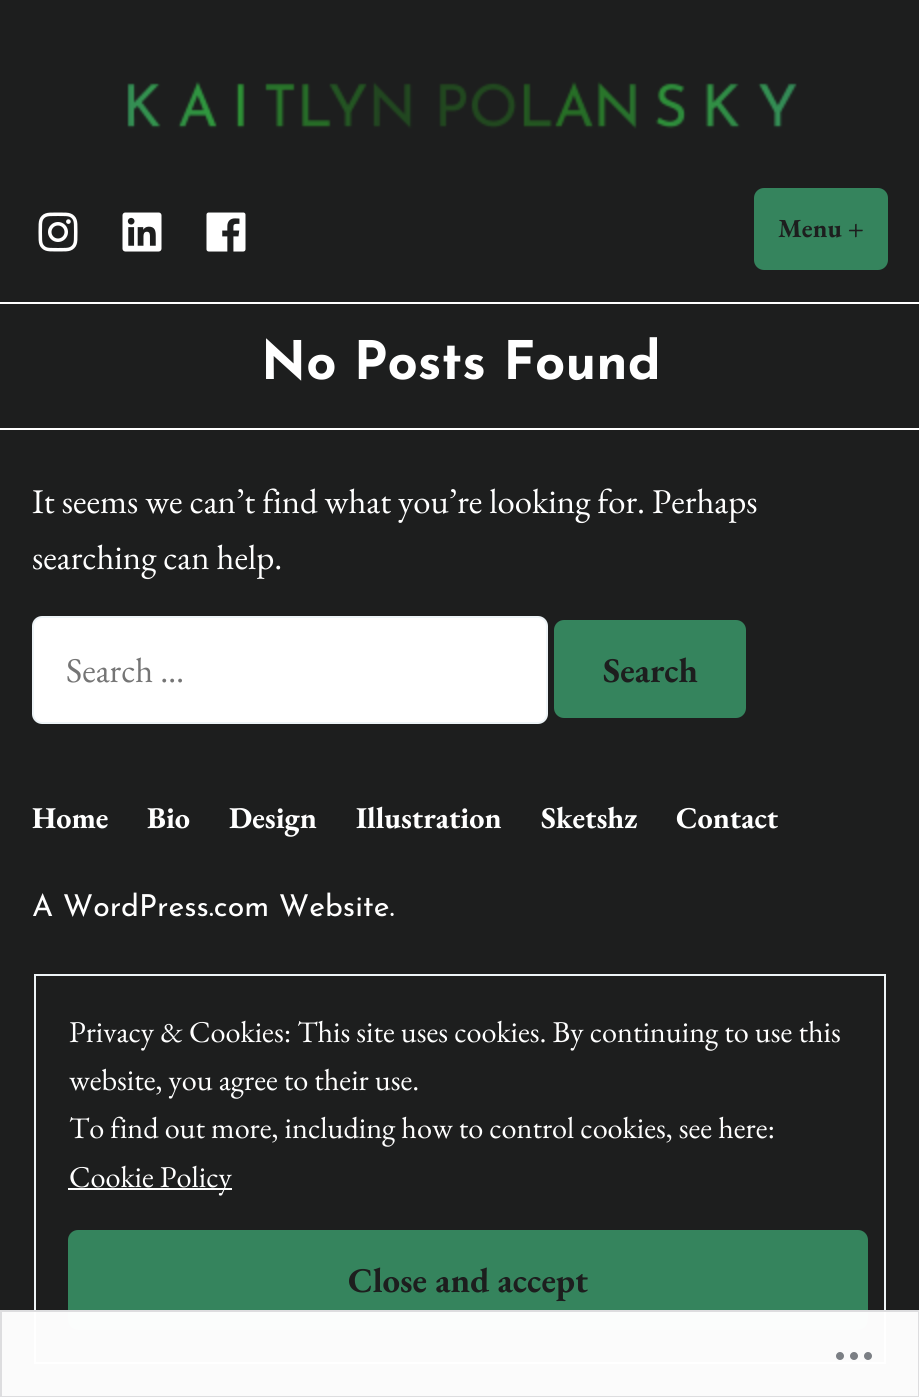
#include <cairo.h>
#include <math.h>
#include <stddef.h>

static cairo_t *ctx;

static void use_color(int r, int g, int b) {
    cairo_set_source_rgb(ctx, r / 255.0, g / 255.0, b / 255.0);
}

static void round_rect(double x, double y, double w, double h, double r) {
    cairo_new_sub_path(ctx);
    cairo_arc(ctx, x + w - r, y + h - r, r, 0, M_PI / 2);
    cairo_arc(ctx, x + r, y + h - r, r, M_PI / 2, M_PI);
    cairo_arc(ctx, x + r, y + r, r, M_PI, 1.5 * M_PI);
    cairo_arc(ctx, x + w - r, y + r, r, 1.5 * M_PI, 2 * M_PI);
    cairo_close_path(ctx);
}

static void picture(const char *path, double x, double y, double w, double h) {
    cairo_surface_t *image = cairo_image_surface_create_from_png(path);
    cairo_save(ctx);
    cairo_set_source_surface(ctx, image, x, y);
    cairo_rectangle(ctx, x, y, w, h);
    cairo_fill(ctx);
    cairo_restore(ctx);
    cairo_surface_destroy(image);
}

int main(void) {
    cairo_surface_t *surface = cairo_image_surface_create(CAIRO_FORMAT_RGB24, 919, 1397);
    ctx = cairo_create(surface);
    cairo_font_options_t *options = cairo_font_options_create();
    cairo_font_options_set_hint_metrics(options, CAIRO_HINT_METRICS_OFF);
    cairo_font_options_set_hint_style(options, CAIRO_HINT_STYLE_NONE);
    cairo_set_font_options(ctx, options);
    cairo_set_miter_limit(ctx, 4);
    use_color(29, 30, 30);
    cairo_paint(ctx);
    picture("img1.png", 127, 81, 670, 48);
    picture("img2.png", 38, 212, 40, 40);
    picture("img3.png", 122, 212, 40, 40);
    picture("img4.png", 206, 212, 40, 40);
    use_color(53, 132, 93);
    round_rect(754, 188, 134, 82, 10);
    cairo_fill(ctx);
    cairo_select_font_face(ctx, "EB Garamond", CAIRO_FONT_SLANT_NORMAL, CAIRO_FONT_WEIGHT_BOLD);
    cairo_set_font_size(ctx, 26);
    use_color(29, 30, 30);
    cairo_move_to(ctx, 778, 237);
    cairo_show_text(ctx, "Menu +");
    use_color(255, 255, 255);
    cairo_rectangle(ctx, 0, 302, 919, 2);
    cairo_fill(ctx);
    cairo_select_font_face(ctx, "Josefin Sans", CAIRO_FONT_SLANT_NORMAL, CAIRO_FONT_WEIGHT_BOLD);
    cairo_set_font_size(ctx, 53);
    cairo_move_to(ctx, 261, 379);
    cairo_show_text(ctx, "No Posts Found");
    cairo_rectangle(ctx, 0, 428, 919, 2);
    cairo_fill(ctx);
    cairo_select_font_face(ctx, "EB Garamond", CAIRO_FONT_SLANT_NORMAL, CAIRO_FONT_WEIGHT_NORMAL);
    cairo_set_font_size(ctx, 34.75);
    cairo_move_to(ctx, 32, 513);
    cairo_show_text(ctx, "It seems we can’t find what you’re looking for. Perhaps");
    cairo_move_to(ctx, 32, 569);
    cairo_show_text(ctx, "searching can help.");
    round_rect(33, 617, 514, 106, 9);
    cairo_fill_preserve(ctx);
    use_color(238, 244, 247);
    cairo_stroke(ctx);
    use_color(117, 117, 117);
    cairo_move_to(ctx, 66, 682);
    cairo_show_text(ctx, "Search …");
    use_color(53, 132, 93);
    round_rect(554, 620, 192, 98, 10);
    cairo_fill(ctx);
    cairo_select_font_face(ctx, "EB Garamond", CAIRO_FONT_SLANT_NORMAL, CAIRO_FONT_WEIGHT_BOLD);
    use_color(29, 30, 30);
    cairo_move_to(ctx, 603, 682);
    cairo_show_text(ctx, "Search");
    cairo_set_font_size(ctx, 30.25);
    use_color(255, 255, 255);
    cairo_move_to(ctx, 32, 828);
    cairo_show_text(ctx, "Home");
    cairo_move_to(ctx, 147, 828);
    cairo_show_text(ctx, "Bio");
    cairo_move_to(ctx, 229, 828);
    cairo_show_text(ctx, "Design");
    cairo_move_to(ctx, 356, 828);
    cairo_show_text(ctx, "Illustration");
    cairo_move_to(ctx, 541, 828);
    cairo_show_text(ctx, "Sketshz");
    cairo_move_to(ctx, 676, 828);
    cairo_show_text(ctx, "Contact");
    cairo_select_font_face(ctx, "Josefin Sans", CAIRO_FONT_SLANT_NORMAL, CAIRO_FONT_WEIGHT_NORMAL);
    cairo_move_to(ctx, 32, 916);
    cairo_show_text(ctx, "A WordPress.com Website.");
    cairo_rectangle(ctx, 35, 975, 850, 388);
    use_color(238, 244, 247);
    cairo_stroke(ctx);
    cairo_select_font_face(ctx, "EB Garamond", CAIRO_FONT_SLANT_NORMAL, CAIRO_FONT_WEIGHT_NORMAL);
    use_color(255, 255, 255);
    cairo_move_to(ctx, 69, 1042);
    cairo_show_text(ctx, "Privacy & Cookies: This site uses cookies. By continuing to use this");
    cairo_move_to(ctx, 69, 1090);
    cairo_show_text(ctx, "website, you agree to their use.");
    cairo_move_to(ctx, 69, 1138);
    cairo_show_text(ctx, "To find out more, including how to control cookies, see here:");
    cairo_rectangle(ctx, 68, 1188, 164, 2);
    cairo_fill(ctx);
    cairo_move_to(ctx, 69, 1187);
    cairo_show_text(ctx, "Cookie Policy");
    use_color(53, 132, 93);
    round_rect(68, 1230, 800, 100, 10);
    cairo_fill(ctx);
    cairo_select_font_face(ctx, "EB Garamond", CAIRO_FONT_SLANT_NORMAL, CAIRO_FONT_WEIGHT_BOLD);
    cairo_set_font_size(ctx, 34.75);
    use_color(29, 30, 30);
    cairo_move_to(ctx, 348, 1292);
    cairo_show_text(ctx, "Close and accept");
    cairo_set_source_rgba(ctx, 1, 1, 1, 0.98);
    cairo_rectangle(ctx, 0, 1310, 919, 87);
    cairo_fill(ctx);
    cairo_rectangle(ctx, 1, 1311, 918, 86);
    cairo_set_source_rgba(ctx, 0.863, 0.863, 0.871, 0.98);
    cairo_stroke(ctx);
    picture("img5.png", 836, 1352, 36, 8);
    cairo_surface_write_to_png(surface, "result.png");
    cairo_font_options_destroy(options);
    cairo_destroy(ctx);
    cairo_surface_destroy(surface);
    return 0;
}
